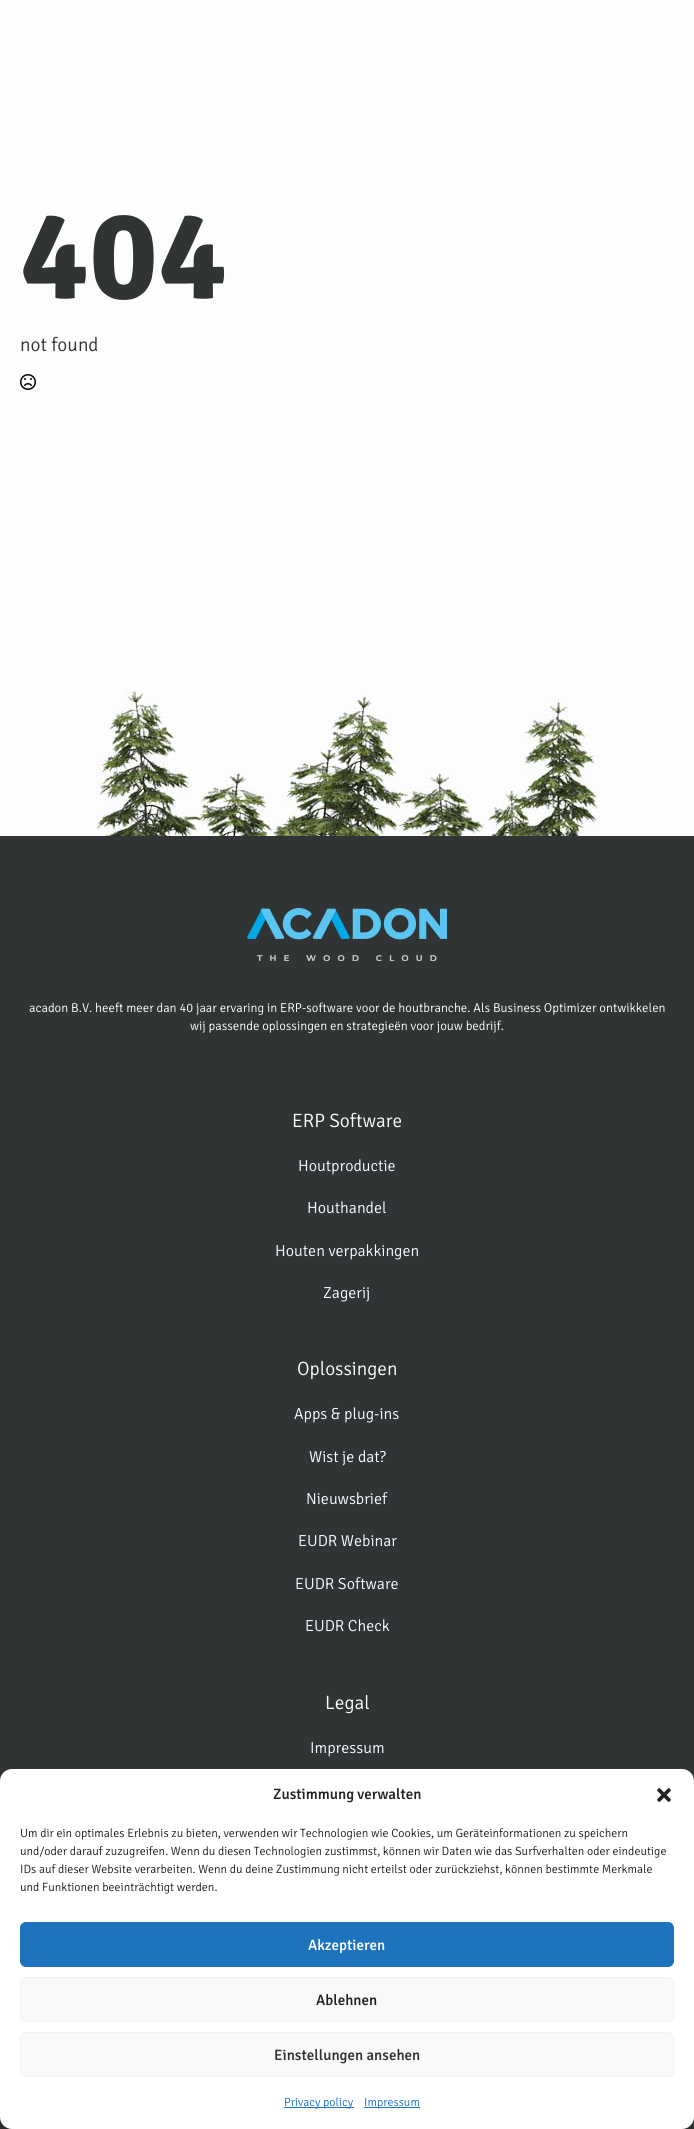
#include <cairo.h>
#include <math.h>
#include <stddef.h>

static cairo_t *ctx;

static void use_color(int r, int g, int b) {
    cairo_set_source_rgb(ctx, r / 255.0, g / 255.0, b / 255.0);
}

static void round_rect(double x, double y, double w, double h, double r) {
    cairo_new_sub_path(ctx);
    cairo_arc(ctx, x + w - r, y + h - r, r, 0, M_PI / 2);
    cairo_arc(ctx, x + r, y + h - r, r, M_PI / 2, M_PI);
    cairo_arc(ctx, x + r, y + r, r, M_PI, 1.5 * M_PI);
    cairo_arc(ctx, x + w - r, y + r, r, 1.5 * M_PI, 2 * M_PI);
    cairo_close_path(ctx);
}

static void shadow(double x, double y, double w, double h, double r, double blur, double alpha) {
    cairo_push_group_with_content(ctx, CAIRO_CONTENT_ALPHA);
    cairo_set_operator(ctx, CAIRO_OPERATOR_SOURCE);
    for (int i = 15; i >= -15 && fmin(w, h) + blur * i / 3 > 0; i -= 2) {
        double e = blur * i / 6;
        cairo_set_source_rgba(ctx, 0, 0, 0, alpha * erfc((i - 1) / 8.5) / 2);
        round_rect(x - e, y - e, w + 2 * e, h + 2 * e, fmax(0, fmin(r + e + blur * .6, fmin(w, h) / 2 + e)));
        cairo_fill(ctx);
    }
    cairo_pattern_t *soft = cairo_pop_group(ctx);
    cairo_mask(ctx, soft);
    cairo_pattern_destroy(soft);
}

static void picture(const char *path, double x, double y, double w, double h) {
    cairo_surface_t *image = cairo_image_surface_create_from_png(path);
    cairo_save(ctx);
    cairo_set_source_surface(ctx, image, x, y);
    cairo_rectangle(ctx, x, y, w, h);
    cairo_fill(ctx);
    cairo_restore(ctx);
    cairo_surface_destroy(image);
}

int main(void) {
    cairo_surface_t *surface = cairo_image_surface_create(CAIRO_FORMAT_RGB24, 694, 2129);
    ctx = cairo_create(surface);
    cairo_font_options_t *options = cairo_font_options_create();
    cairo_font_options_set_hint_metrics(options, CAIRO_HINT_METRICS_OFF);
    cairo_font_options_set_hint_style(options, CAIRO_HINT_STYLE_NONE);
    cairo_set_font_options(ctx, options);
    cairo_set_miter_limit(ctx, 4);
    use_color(253, 253, 253);
    cairo_paint(ctx);
    cairo_select_font_face(ctx, "Signika", CAIRO_FONT_SLANT_NORMAL, CAIRO_FONT_WEIGHT_BOLD);
    cairo_set_font_size(ctx, 128);
    use_color(49, 52, 53);
    cairo_move_to(ctx, 20, 298);
    cairo_show_text(ctx, "404");
    cairo_select_font_face(ctx, "Signika Light", CAIRO_FONT_SLANT_NORMAL, CAIRO_FONT_WEIGHT_NORMAL);
    cairo_set_font_size(ctx, 19.25);
    cairo_move_to(ctx, 20, 351);
    cairo_show_text(ctx, "not found");
    picture("img1.png", 20, 374, 16, 16);
    picture("img2.png", 96, 691, 503, 145);
    cairo_rectangle(ctx, 0, 836, 694, 1293);
    cairo_fill(ctx);
    picture("img3.png", 247, 908, 200, 53);
    cairo_set_font_size(ctx, 12.8);
    use_color(253, 253, 253);
    cairo_move_to(ctx, 29, 1012);
    cairo_show_text(ctx, "acadon B.V. heeft meer dan 40 jaar ervaring in ERP-software voor de houtbranche. Als Business Optimizer ontwikkelen");
    cairo_move_to(ctx, 190, 1030);
    cairo_show_text(ctx, "wij passende oplossingen en strategieën voor jouw bedrijf.");
    cairo_set_font_size(ctx, 19.25);
    cairo_move_to(ctx, 292, 1127);
    cairo_show_text(ctx, "ERP Software");
    cairo_set_font_size(ctx, 16);
    use_color(246, 251, 254);
    cairo_move_to(ctx, 298, 1171);
    cairo_show_text(ctx, "Houtproductie");
    cairo_move_to(ctx, 307, 1213);
    cairo_show_text(ctx, "Houthandel");
    cairo_move_to(ctx, 275, 1256);
    cairo_show_text(ctx, "Houten verpakkingen");
    cairo_move_to(ctx, 323, 1298);
    cairo_show_text(ctx, "Zagerij");
    cairo_set_font_size(ctx, 19.25);
    use_color(253, 253, 253);
    cairo_move_to(ctx, 297, 1375);
    cairo_show_text(ctx, "Oplossingen");
    cairo_set_font_size(ctx, 16);
    use_color(246, 251, 254);
    cairo_move_to(ctx, 294, 1419);
    cairo_show_text(ctx, "Apps & plug-ins");
    cairo_move_to(ctx, 309, 1462);
    cairo_show_text(ctx, "Wist je dat?");
    cairo_move_to(ctx, 306, 1504);
    cairo_show_text(ctx, "Nieuwsbrief");
    cairo_move_to(ctx, 298, 1546);
    cairo_show_text(ctx, "EUDR Webinar");
    cairo_move_to(ctx, 295, 1589);
    cairo_show_text(ctx, "EUDR Software");
    cairo_move_to(ctx, 305, 1631);
    cairo_show_text(ctx, "EUDR Check");
    cairo_set_font_size(ctx, 19.25);
    use_color(253, 253, 253);
    cairo_move_to(ctx, 325, 1709);
    cairo_show_text(ctx, "Legal");
    cairo_set_font_size(ctx, 16);
    use_color(246, 251, 254);
    cairo_move_to(ctx, 310, 1753);
    cairo_show_text(ctx, "Impressum");
    use_color(0, 0, 0);
    shadow(0, 1775, 694, 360, 12, 3, 0.23);
    use_color(255, 255, 255);
    round_rect(0, 1769, 694, 360, 12);
    cairo_fill(ctx);
    cairo_select_font_face(ctx, "Signika Medium", CAIRO_FONT_SLANT_NORMAL, CAIRO_FONT_WEIGHT_NORMAL);
    cairo_set_font_size(ctx, 15);
    use_color(34, 34, 34);
    cairo_move_to(ctx, 273, 1799);
    cairo_show_text(ctx, "Zustimmung verwalten");
    picture("img4.png", 657, 1788, 14, 14);
    cairo_select_font_face(ctx, "Signika Light", CAIRO_FONT_SLANT_NORMAL, CAIRO_FONT_WEIGHT_NORMAL);
    cairo_set_font_size(ctx, 12);
    cairo_move_to(ctx, 20, 1837);
    cairo_show_text(ctx, "Um dir ein optimales Erlebnis zu bieten, verwenden wir Technologien wie Cookies, um Geräteinformationen zu speichern");
    cairo_move_to(ctx, 20, 1855);
    cairo_show_text(ctx, "und/oder darauf zuzugreifen. Wenn du diesen Technologien zustimmst, können wir Daten wie das Surfverhalten oder eindeutige");
    cairo_move_to(ctx, 20, 1873);
    cairo_show_text(ctx, "IDs auf dieser Website verarbeiten. Wenn du deine Zustimmung nicht erteilst oder zurückziehst, können bestimmte Merkmale");
    cairo_move_to(ctx, 20, 1891);
    cairo_show_text(ctx, "und Funktionen beeinträchtigt werden.");
    use_color(30, 115, 190);
    round_rect(20.5, 1922.5, 653, 44, 5.5);
    cairo_fill_preserve(ctx);
    cairo_set_line_width(ctx, 1);
    cairo_stroke(ctx);
    cairo_select_font_face(ctx, "Signika Medium", CAIRO_FONT_SLANT_NORMAL, CAIRO_FONT_WEIGHT_NORMAL);
    cairo_set_font_size(ctx, 15);
    use_color(253, 253, 253);
    cairo_move_to(ctx, 308, 1950);
    cairo_show_text(ctx, "Akzeptieren");
    use_color(249, 249, 249);
    round_rect(20.5, 1977.5, 653, 44, 5.5);
    cairo_fill_preserve(ctx);
    use_color(242, 242, 242);
    cairo_stroke(ctx);
    use_color(34, 34, 34);
    cairo_move_to(ctx, 316, 2005);
    cairo_show_text(ctx, "Ablehnen");
    use_color(249, 249, 249);
    round_rect(20.5, 2032.5, 653, 44, 5.5);
    cairo_fill_preserve(ctx);
    use_color(242, 242, 242);
    cairo_stroke(ctx);
    use_color(49, 52, 53);
    cairo_move_to(ctx, 274, 2060);
    cairo_show_text(ctx, "Einstellungen ansehen");
    use_color(30, 115, 190);
    cairo_rectangle(ctx, 284, 2107, 70, 1);
    cairo_fill(ctx);
    cairo_select_font_face(ctx, "Signika Light", CAIRO_FONT_SLANT_NORMAL, CAIRO_FONT_WEIGHT_NORMAL);
    cairo_set_font_size(ctx, 12);
    cairo_move_to(ctx, 284, 2106);
    cairo_show_text(ctx, "Privacy policy");
    cairo_rectangle(ctx, 364, 2107, 56, 1);
    cairo_fill(ctx);
    cairo_move_to(ctx, 364, 2106);
    cairo_show_text(ctx, "Impressum");
    cairo_surface_write_to_png(surface, "result.png");
    cairo_font_options_destroy(options);
    cairo_destroy(ctx);
    cairo_surface_destroy(surface);
    return 0;
}
